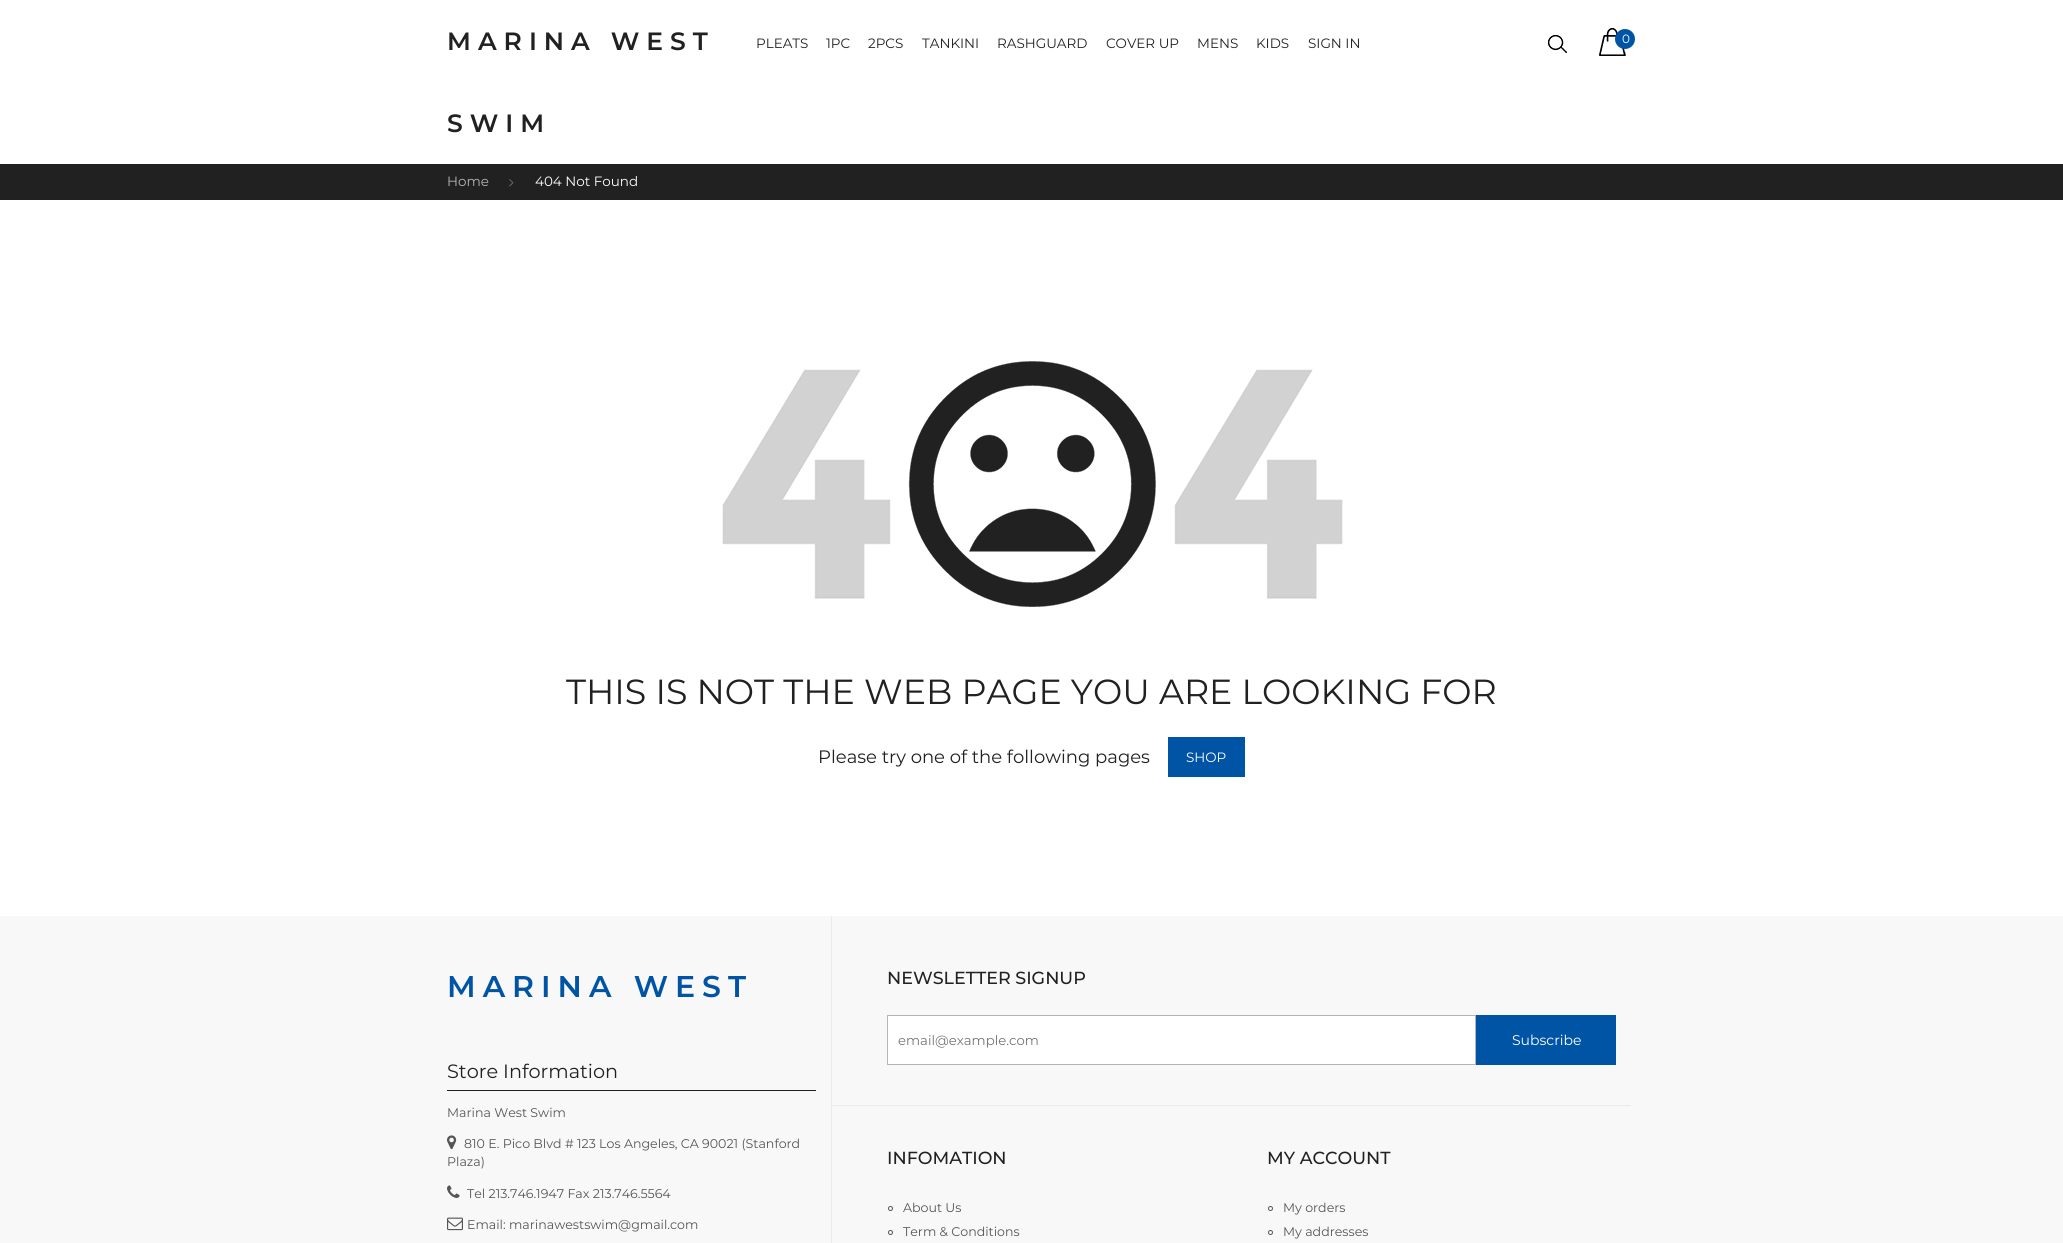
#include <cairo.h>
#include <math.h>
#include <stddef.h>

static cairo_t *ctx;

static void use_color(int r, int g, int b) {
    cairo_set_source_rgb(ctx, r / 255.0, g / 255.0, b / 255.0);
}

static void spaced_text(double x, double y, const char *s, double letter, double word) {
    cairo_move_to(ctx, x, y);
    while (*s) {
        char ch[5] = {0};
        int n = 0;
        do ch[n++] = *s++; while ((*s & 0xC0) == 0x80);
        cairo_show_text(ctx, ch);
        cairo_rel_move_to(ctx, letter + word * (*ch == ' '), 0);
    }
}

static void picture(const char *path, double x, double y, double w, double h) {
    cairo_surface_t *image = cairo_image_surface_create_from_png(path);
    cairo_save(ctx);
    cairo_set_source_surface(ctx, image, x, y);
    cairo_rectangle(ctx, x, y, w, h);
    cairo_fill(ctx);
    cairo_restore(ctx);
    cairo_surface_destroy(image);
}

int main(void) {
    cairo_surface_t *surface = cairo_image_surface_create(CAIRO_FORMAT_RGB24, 2063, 1243);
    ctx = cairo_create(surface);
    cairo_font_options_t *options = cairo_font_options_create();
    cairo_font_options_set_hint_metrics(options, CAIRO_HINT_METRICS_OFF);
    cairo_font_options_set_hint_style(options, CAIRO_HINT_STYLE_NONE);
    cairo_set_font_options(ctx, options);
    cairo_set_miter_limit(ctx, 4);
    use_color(255, 255, 255);
    cairo_paint(ctx);
    cairo_select_font_face(ctx, "Montserrat SemiBold", CAIRO_FONT_SLANT_NORMAL, CAIRO_FONT_WEIGHT_NORMAL);
    cairo_set_font_size(ctx, 25);
    use_color(33, 33, 33);
    spaced_text(447, 50, "MARINA WEST", 7, 0);
    spaced_text(447, 132, "SWIM", 7, 0);
    cairo_select_font_face(ctx, "Montserrat", CAIRO_FONT_SLANT_NORMAL, CAIRO_FONT_WEIGHT_NORMAL);
    cairo_set_font_size(ctx, 13.5);
    cairo_move_to(ctx, 756, 48);
    cairo_show_text(ctx, "PLEATS");
    cairo_move_to(ctx, 826, 48);
    cairo_show_text(ctx, "1PC");
    cairo_move_to(ctx, 868, 48);
    cairo_show_text(ctx, "2PCS");
    cairo_move_to(ctx, 922, 48);
    cairo_show_text(ctx, "TANKINI");
    cairo_move_to(ctx, 997, 48);
    cairo_show_text(ctx, "RASHGUARD");
    cairo_move_to(ctx, 1106, 48);
    cairo_show_text(ctx, "COVER UP");
    cairo_move_to(ctx, 1197, 48);
    cairo_show_text(ctx, "MENS");
    cairo_move_to(ctx, 1256, 48);
    cairo_show_text(ctx, "KIDS");
    cairo_move_to(ctx, 1308, 48);
    cairo_show_text(ctx, "SIGN IN");
    picture("img1.png", 1548, 35, 19, 18);
    picture("img2.png", 1599, 28, 27, 28);
    use_color(0, 84, 166);
    cairo_arc(ctx, 1625, 39, 10, 0, 2 * M_PI);
    cairo_fill(ctx);
    cairo_set_font_size(ctx, 12);
    use_color(255, 255, 255);
    cairo_move_to(ctx, 1622, 43);
    cairo_show_text(ctx, "0");
    use_color(33, 33, 33);
    cairo_rectangle(ctx, 0, 164, 2063, 36);
    cairo_fill(ctx);
    cairo_set_font_size(ctx, 13.5);
    use_color(181, 181, 181);
    cairo_move_to(ctx, 447, 186);
    cairo_show_text(ctx, "Home");
    picture("img3.png", 509, 179, 5, 8);
    use_color(255, 255, 255);
    cairo_move_to(ctx, 535, 186);
    cairo_show_text(ctx, "404 Not Found");
    picture("img4.png", 722, 361, 621, 246);
    cairo_set_font_size(ctx, 34.85);
    use_color(33, 33, 33);
    cairo_move_to(ctx, 566, 704);
    cairo_show_text(ctx, "THIS IS NOT THE WEB PAGE YOU ARE LOOKING FOR");
    cairo_set_font_size(ctx, 18);
    cairo_move_to(ctx, 818, 763);
    cairo_show_text(ctx, "Please try one of the following pages");
    use_color(0, 84, 166);
    cairo_rectangle(ctx, 1168, 737, 77, 40);
    cairo_fill(ctx);
    cairo_set_font_size(ctx, 13.5);
    use_color(255, 255, 255);
    cairo_move_to(ctx, 1186, 762);
    cairo_show_text(ctx, "SHOP");
    use_color(248, 248, 248);
    cairo_rectangle(ctx, 0, 916, 2063, 327);
    cairo_fill(ctx);
    cairo_select_font_face(ctx, "Montserrat SemiBold", CAIRO_FONT_SLANT_NORMAL, CAIRO_FONT_WEIGHT_NORMAL);
    cairo_set_font_size(ctx, 30);
    use_color(0, 84, 166);
    spaced_text(447, 997, "MARINA WEST", 7, 0);
    use_color(33, 33, 33);
    cairo_rectangle(ctx, 447, 1090, 369, 1);
    cairo_fill(ctx);
    cairo_select_font_face(ctx, "Montserrat", CAIRO_FONT_SLANT_NORMAL, CAIRO_FONT_WEIGHT_NORMAL);
    cairo_set_font_size(ctx, 19.25);
    cairo_move_to(ctx, 447, 1078);
    cairo_show_text(ctx, "Store Information");
    cairo_set_font_size(ctx, 12.6);
    use_color(85, 85, 85);
    cairo_move_to(ctx, 447, 1117);
    cairo_show_text(ctx, "Marina West Swim");
    picture("img5.png", 447, 1135, 10, 15);
    cairo_move_to(ctx, 464, 1148);
    cairo_show_text(ctx, "810 E. Pico Blvd # 123 Los Angeles, CA 90021 (Stanford");
    cairo_move_to(ctx, 447, 1166);
    cairo_show_text(ctx, "Plaza)");
    picture("img6.png", 447, 1185, 13, 13);
    cairo_move_to(ctx, 467, 1198);
    cairo_show_text(ctx, "Tel 213.746.1947 Fax 213.746.5564");
    picture("img7.png", 447, 1217, 16, 14);
    cairo_move_to(ctx, 467, 1229);
    cairo_show_text(ctx, "Email: marinawestswim@gmail.com");
    use_color(229, 237, 240);
    cairo_rectangle(ctx, 831, 916, 1, 327);
    cairo_fill(ctx);
    cairo_select_font_face(ctx, "Montserrat Medium", CAIRO_FONT_SLANT_NORMAL, CAIRO_FONT_WEIGHT_NORMAL);
    cairo_set_font_size(ctx, 17.5);
    use_color(33, 33, 33);
    cairo_move_to(ctx, 887, 984);
    cairo_show_text(ctx, "NEWSLETTER SIGNUP");
    use_color(255, 255, 255);
    cairo_rectangle(ctx, 887.5, 1015.5, 588, 49);
    cairo_fill_preserve(ctx);
    use_color(182, 180, 180);
    cairo_set_line_width(ctx, 1);
    cairo_stroke(ctx);
    cairo_select_font_face(ctx, "Montserrat", CAIRO_FONT_SLANT_NORMAL, CAIRO_FONT_WEIGHT_NORMAL);
    cairo_set_font_size(ctx, 13.25);
    use_color(117, 117, 117);
    cairo_move_to(ctx, 898, 1045);
    cairo_show_text(ctx, "email@example.com");
    use_color(0, 84, 166);
    cairo_rectangle(ctx, 1476, 1015, 140, 50);
    cairo_fill(ctx);
    cairo_set_font_size(ctx, 14);
    use_color(255, 255, 255);
    cairo_move_to(ctx, 1512, 1045);
    cairo_show_text(ctx, "Subscribe");
    use_color(229, 237, 240);
    cairo_rectangle(ctx, 832, 1105, 799, 1);
    cairo_fill(ctx);
    cairo_select_font_face(ctx, "Montserrat Medium", CAIRO_FONT_SLANT_NORMAL, CAIRO_FONT_WEIGHT_NORMAL);
    cairo_set_font_size(ctx, 17.5);
    use_color(33, 33, 33);
    cairo_move_to(ctx, 887, 1164);
    cairo_show_text(ctx, "INFOMATION");
    cairo_new_path(ctx);
    cairo_arc(ctx, 890.5, 1208.5, 2, 0, 2 * M_PI);
    use_color(85, 85, 85);
    cairo_stroke(ctx);
    cairo_select_font_face(ctx, "Montserrat", CAIRO_FONT_SLANT_NORMAL, CAIRO_FONT_WEIGHT_NORMAL);
    cairo_set_font_size(ctx, 12.6);
    cairo_move_to(ctx, 903, 1212);
    cairo_show_text(ctx, "About Us");
    cairo_new_path(ctx);
    cairo_arc(ctx, 890.5, 1232.5, 2, 0, 2 * M_PI);
    cairo_stroke(ctx);
    cairo_move_to(ctx, 903, 1236);
    cairo_show_text(ctx, "Term & Conditions");
    cairo_select_font_face(ctx, "Montserrat Medium", CAIRO_FONT_SLANT_NORMAL, CAIRO_FONT_WEIGHT_NORMAL);
    cairo_set_font_size(ctx, 17.5);
    use_color(33, 33, 33);
    cairo_move_to(ctx, 1267, 1164);
    cairo_show_text(ctx, "MY ACCOUNT");
    cairo_new_path(ctx);
    cairo_arc(ctx, 1270.5, 1208.5, 2, 0, 2 * M_PI);
    use_color(85, 85, 85);
    cairo_stroke(ctx);
    cairo_select_font_face(ctx, "Montserrat", CAIRO_FONT_SLANT_NORMAL, CAIRO_FONT_WEIGHT_NORMAL);
    cairo_set_font_size(ctx, 12.6);
    cairo_move_to(ctx, 1283, 1212);
    cairo_show_text(ctx, "My orders");
    cairo_new_path(ctx);
    cairo_arc(ctx, 1270.5, 1232.5, 2, 0, 2 * M_PI);
    cairo_stroke(ctx);
    cairo_move_to(ctx, 1283, 1236);
    cairo_show_text(ctx, "My addresses");
    cairo_surface_write_to_png(surface, "result.png");
    cairo_font_options_destroy(options);
    cairo_destroy(ctx);
    cairo_surface_destroy(surface);
    return 0;
}
